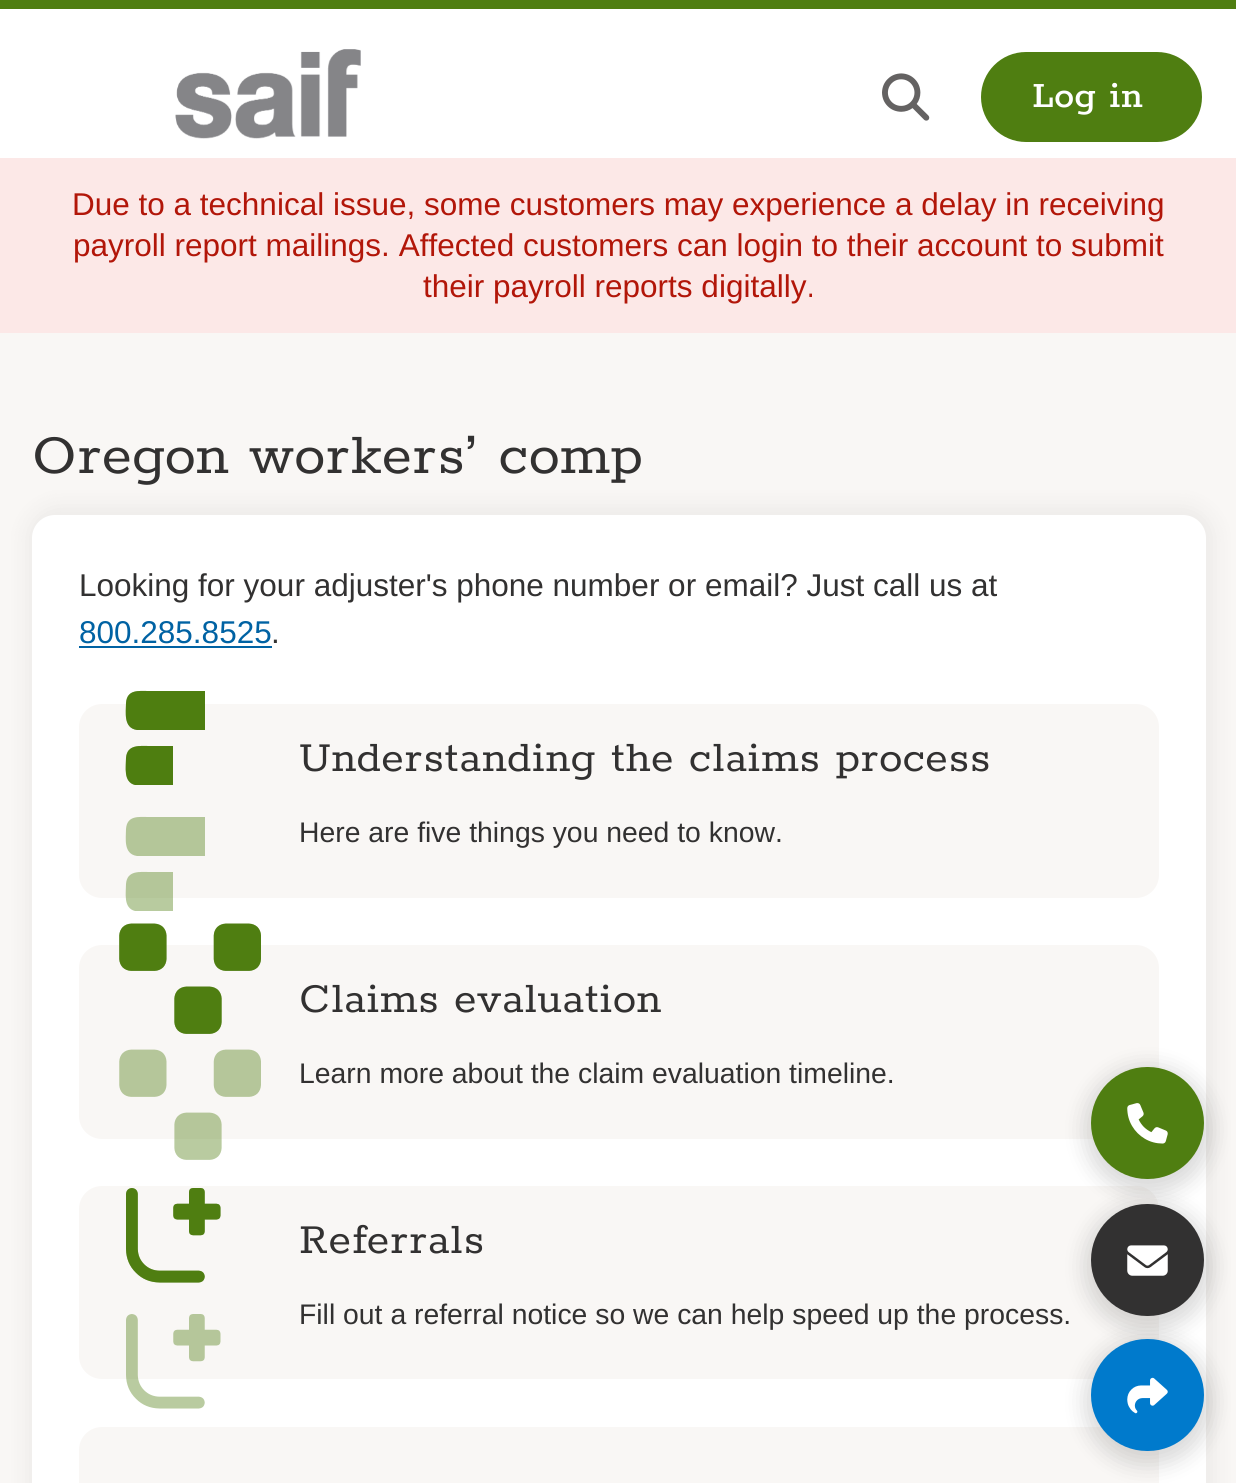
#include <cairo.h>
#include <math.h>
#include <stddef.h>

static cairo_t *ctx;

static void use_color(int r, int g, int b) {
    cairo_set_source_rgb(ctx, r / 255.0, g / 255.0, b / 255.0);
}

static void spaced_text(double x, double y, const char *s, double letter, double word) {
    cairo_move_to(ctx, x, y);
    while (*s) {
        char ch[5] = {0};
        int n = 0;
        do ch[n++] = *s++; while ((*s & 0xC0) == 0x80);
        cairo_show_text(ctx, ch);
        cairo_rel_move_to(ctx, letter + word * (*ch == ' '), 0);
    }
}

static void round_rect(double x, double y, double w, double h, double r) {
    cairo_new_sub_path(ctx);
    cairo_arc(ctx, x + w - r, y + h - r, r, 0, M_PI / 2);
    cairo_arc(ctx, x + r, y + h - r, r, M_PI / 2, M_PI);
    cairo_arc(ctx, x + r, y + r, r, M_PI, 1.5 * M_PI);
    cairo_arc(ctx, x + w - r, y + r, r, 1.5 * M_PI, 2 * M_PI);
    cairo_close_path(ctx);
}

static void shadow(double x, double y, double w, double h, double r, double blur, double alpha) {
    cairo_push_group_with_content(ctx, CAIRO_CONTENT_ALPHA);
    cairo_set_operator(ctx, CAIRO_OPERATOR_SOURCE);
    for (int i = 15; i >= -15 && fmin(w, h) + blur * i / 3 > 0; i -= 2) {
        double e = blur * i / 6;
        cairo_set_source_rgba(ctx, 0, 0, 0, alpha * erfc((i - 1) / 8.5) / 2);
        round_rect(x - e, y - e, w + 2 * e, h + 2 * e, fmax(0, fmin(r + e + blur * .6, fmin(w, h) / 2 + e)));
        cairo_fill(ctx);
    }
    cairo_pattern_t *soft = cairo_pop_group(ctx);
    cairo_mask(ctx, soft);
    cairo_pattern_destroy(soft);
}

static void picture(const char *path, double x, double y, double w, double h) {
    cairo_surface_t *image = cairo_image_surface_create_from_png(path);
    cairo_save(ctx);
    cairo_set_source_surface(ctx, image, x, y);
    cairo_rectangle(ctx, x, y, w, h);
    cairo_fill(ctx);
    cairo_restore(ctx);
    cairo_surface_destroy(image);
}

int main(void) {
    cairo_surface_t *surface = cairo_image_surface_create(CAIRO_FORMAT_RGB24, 1236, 1483);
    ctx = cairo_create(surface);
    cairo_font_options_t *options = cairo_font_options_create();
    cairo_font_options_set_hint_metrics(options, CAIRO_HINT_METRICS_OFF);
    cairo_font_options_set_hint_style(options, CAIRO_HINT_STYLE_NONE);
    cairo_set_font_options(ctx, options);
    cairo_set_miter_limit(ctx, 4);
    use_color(249, 247, 245);
    cairo_paint(ctx);
    use_color(255, 255, 255);
    cairo_rectangle(ctx, 0, 9, 1236, 149);
    cairo_fill(ctx);
    use_color(79, 126, 17);
    cairo_rectangle(ctx, 0, 0, 1236, 9);
    cairo_fill(ctx);
    picture("img1.png", 175, 49, 186, 90);
    picture("img2.png", 882, 73, 48, 48);
    round_rect(983.5, 54.5, 216, 85, 42.5);
    cairo_fill_preserve(ctx);
    cairo_set_line_width(ctx, 5);
    cairo_stroke(ctx);
    cairo_select_font_face(ctx, "Rokkitt Medium", CAIRO_FONT_SLANT_NORMAL, CAIRO_FONT_WEIGHT_NORMAL);
    cairo_set_font_size(ctx, 40.5);
    use_color(255, 255, 255);
    spaced_text(1032, 107, "Log in", 0.75, 0);
    use_color(252, 232, 231);
    cairo_rectangle(ctx, 0, 158, 1236, 175);
    cairo_fill(ctx);
    cairo_select_font_face(ctx, "Liberation Sans", CAIRO_FONT_SLANT_NORMAL, CAIRO_FONT_WEIGHT_NORMAL);
    cairo_set_font_size(ctx, 31.5);
    use_color(178, 22, 9);
    cairo_move_to(ctx, 72, 215);
    cairo_show_text(ctx, "Due to a technical issue, some customers may experience a delay in receiving");
    cairo_move_to(ctx, 73, 256);
    cairo_show_text(ctx, "payroll report mailings. Affected customers can login to their account to submit");
    cairo_move_to(ctx, 423, 297);
    cairo_show_text(ctx, "their payroll reports digitally.");
    cairo_select_font_face(ctx, "Rokkitt", CAIRO_FONT_SLANT_NORMAL, CAIRO_FONT_WEIGHT_NORMAL);
    cairo_set_font_size(ctx, 63);
    use_color(50, 49, 49);
    spaced_text(32, 473, "Oregon workers’ comp", 0.7, 0);
    use_color(0, 0, 0);
    shadow(27, 506, 1188, 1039, 29, 11, 0.05);
    use_color(255, 255, 255);
    round_rect(32, 515, 1174, 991, 23);
    cairo_fill(ctx);
    cairo_select_font_face(ctx, "Liberation Sans", CAIRO_FONT_SLANT_NORMAL, CAIRO_FONT_WEIGHT_NORMAL);
    cairo_set_font_size(ctx, 31.5);
    use_color(50, 49, 49);
    cairo_move_to(ctx, 79, 596);
    cairo_show_text(ctx, "Looking for your adjuster's phone number or email? Just call us at");
    use_color(0, 98, 163);
    cairo_move_to(ctx, 79, 643);
    cairo_show_text(ctx, "800.285.8525");
    cairo_rectangle(ctx, 79, 646, 193, 2);
    cairo_fill(ctx);
    use_color(50, 49, 49);
    cairo_move_to(ctx, 271, 643);
    cairo_show_text(ctx, ".");
    use_color(249, 247, 245);
    round_rect(79, 704, 1080, 194, 23);
    cairo_fill(ctx);
    use_color(79, 126, 17);
    cairo_new_path(ctx);
    cairo_move_to(ctx, 126, 703);
    cairo_curve_to(ctx, 127, 689, 139, 691, 149, 691);
    cairo_line_to(ctx, 205, 691);
    cairo_line_to(ctx, 205, 730);
    cairo_line_to(ctx, 137, 730);
    cairo_curve_to(ctx, 123, 728, 126, 712, 126, 703);
    cairo_close_path(ctx);
    cairo_move_to(ctx, 126, 758);
    cairo_curve_to(ctx, 127, 744, 140, 746, 150, 746);
    cairo_line_to(ctx, 173, 746);
    cairo_line_to(ctx, 173, 785);
    cairo_line_to(ctx, 135, 785);
    cairo_curve_to(ctx, 123, 782, 126, 767, 126, 758);
    cairo_close_path(ctx);
    cairo_fill(ctx);
    cairo_set_source_rgba(ctx, 0.31, 0.494, 0.067, 0.4);
    cairo_new_path(ctx);
    cairo_move_to(ctx, 126, 703);
    cairo_curve_to(ctx, 127, 689, 139, 691, 149, 691);
    cairo_line_to(ctx, 205, 691);
    cairo_line_to(ctx, 205, 730);
    cairo_line_to(ctx, 137, 730);
    cairo_curve_to(ctx, 123, 728, 126, 712, 126, 703);
    cairo_close_path(ctx);
    cairo_move_to(ctx, 126, 758);
    cairo_curve_to(ctx, 127, 744, 140, 746, 150, 746);
    cairo_line_to(ctx, 173, 746);
    cairo_line_to(ctx, 173, 785);
    cairo_line_to(ctx, 135, 785);
    cairo_curve_to(ctx, 123, 782, 126, 767, 126, 758);
    cairo_close_path(ctx);
    cairo_fill(ctx);
    cairo_new_path(ctx);
    cairo_move_to(ctx, 126, 829);
    cairo_curve_to(ctx, 127, 815, 139, 817, 149, 817);
    cairo_line_to(ctx, 205, 817);
    cairo_line_to(ctx, 205, 856);
    cairo_line_to(ctx, 137, 856);
    cairo_curve_to(ctx, 123, 854, 126, 838, 126, 829);
    cairo_close_path(ctx);
    cairo_move_to(ctx, 126, 884);
    cairo_curve_to(ctx, 127, 870, 140, 872, 150, 872);
    cairo_line_to(ctx, 173, 872);
    cairo_line_to(ctx, 173, 911);
    cairo_line_to(ctx, 135, 911);
    cairo_curve_to(ctx, 123, 908, 126, 893, 126, 884);
    cairo_close_path(ctx);
    cairo_fill(ctx);
    cairo_select_font_face(ctx, "Rokkitt", CAIRO_FONT_SLANT_NORMAL, CAIRO_FONT_WEIGHT_NORMAL);
    cairo_set_font_size(ctx, 47.25);
    use_color(50, 49, 49);
    spaced_text(299, 771, "Understanding the claims process", 0.8, 0);
    cairo_select_font_face(ctx, "Liberation Sans", CAIRO_FONT_SLANT_NORMAL, CAIRO_FONT_WEIGHT_NORMAL);
    cairo_set_font_size(ctx, 28.35);
    cairo_move_to(ctx, 299, 842);
    cairo_show_text(ctx, "Here are five things you need to know.");
    use_color(249, 247, 245);
    round_rect(79, 945, 1080, 194, 23);
    cairo_fill(ctx);
    picture("img3.png", 119, 923, 142, 111);
    picture("img4.png", 119, 923, 142, 111);
    picture("img5.png", 119, 1049, 142, 111);
    cairo_select_font_face(ctx, "Rokkitt", CAIRO_FONT_SLANT_NORMAL, CAIRO_FONT_WEIGHT_NORMAL);
    cairo_set_font_size(ctx, 47.25);
    use_color(50, 49, 49);
    spaced_text(299, 1012, "Claims evaluation", 0.8, 0);
    cairo_select_font_face(ctx, "Liberation Sans", CAIRO_FONT_SLANT_NORMAL, CAIRO_FONT_WEIGHT_NORMAL);
    cairo_set_font_size(ctx, 28.35);
    cairo_move_to(ctx, 299, 1083);
    cairo_show_text(ctx, "Learn more about the claim evaluation timeline.");
    use_color(249, 247, 245);
    round_rect(79, 1186, 1080, 193, 23);
    cairo_fill(ctx);
    picture("img6.png", 126, 1188, 95, 95);
    picture("img7.png", 126, 1188, 95, 95);
    picture("img8.png", 126, 1314, 95, 95);
    cairo_select_font_face(ctx, "Rokkitt", CAIRO_FONT_SLANT_NORMAL, CAIRO_FONT_WEIGHT_NORMAL);
    cairo_set_font_size(ctx, 47.25);
    use_color(50, 49, 49);
    spaced_text(299, 1253, "Referrals", 0.8, 0);
    cairo_select_font_face(ctx, "Liberation Sans", CAIRO_FONT_SLANT_NORMAL, CAIRO_FONT_WEIGHT_NORMAL);
    cairo_set_font_size(ctx, 28.35);
    cairo_move_to(ctx, 299, 1324);
    cairo_show_text(ctx, "Fill out a referral notice so we can help speed up the process.");
    use_color(249, 247, 245);
    round_rect(79, 1427, 1080, 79, 23);
    cairo_fill(ctx);
    use_color(0, 0, 0);
    shadow(1085, 1067, 126, 126, 63, 11, 0.15);
    use_color(79, 126, 17);
    round_rect(1091, 1067, 113, 112, 56);
    cairo_fill(ctx);
    picture("img9.png", 1127, 1103, 41, 41);
    use_color(0, 0, 0);
    shadow(1085, 1204, 126, 126, 63, 11, 0.15);
    use_color(50, 49, 49);
    round_rect(1091, 1204, 113, 112, 56);
    cairo_fill(ctx);
    picture("img10.png", 1127, 1245, 41, 31);
    use_color(0, 0, 0);
    shadow(1085, 1339, 126, 126, 63, 11, 0.15);
    use_color(0, 122, 204);
    round_rect(1091, 1339, 113, 112, 56);
    cairo_fill(ctx);
    picture("img11.png", 1127, 1377, 41, 37);
    cairo_surface_write_to_png(surface, "result.png");
    cairo_font_options_destroy(options);
    cairo_destroy(ctx);
    cairo_surface_destroy(surface);
    return 0;
}
